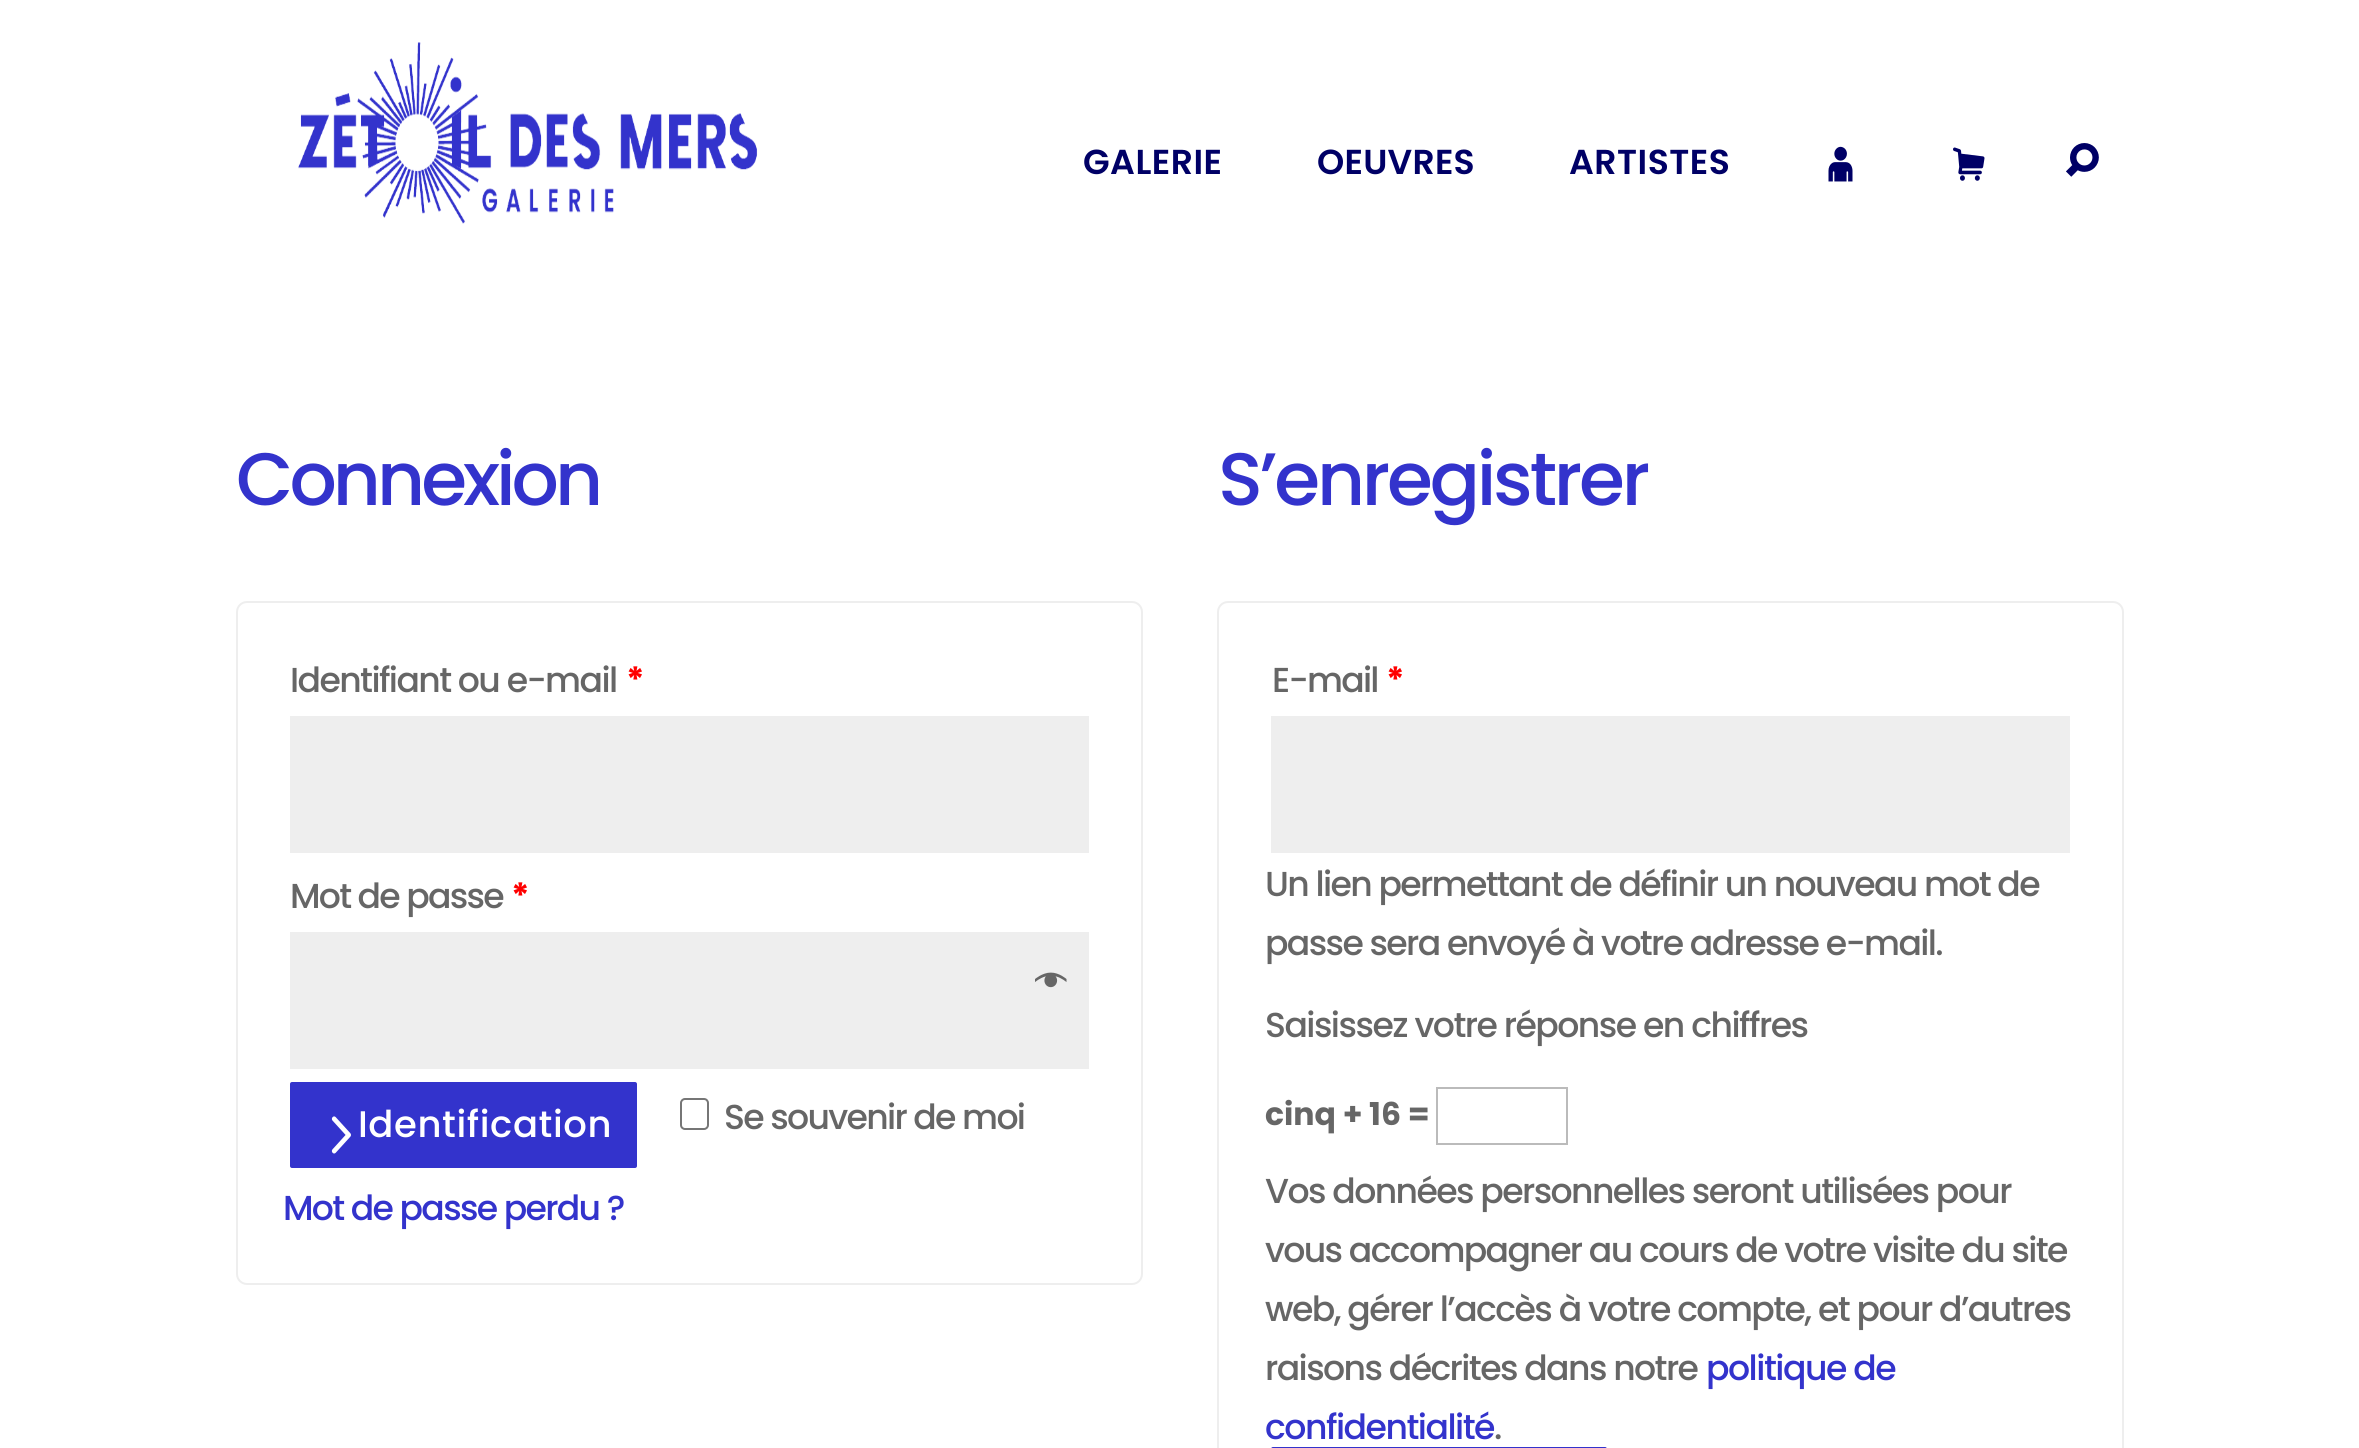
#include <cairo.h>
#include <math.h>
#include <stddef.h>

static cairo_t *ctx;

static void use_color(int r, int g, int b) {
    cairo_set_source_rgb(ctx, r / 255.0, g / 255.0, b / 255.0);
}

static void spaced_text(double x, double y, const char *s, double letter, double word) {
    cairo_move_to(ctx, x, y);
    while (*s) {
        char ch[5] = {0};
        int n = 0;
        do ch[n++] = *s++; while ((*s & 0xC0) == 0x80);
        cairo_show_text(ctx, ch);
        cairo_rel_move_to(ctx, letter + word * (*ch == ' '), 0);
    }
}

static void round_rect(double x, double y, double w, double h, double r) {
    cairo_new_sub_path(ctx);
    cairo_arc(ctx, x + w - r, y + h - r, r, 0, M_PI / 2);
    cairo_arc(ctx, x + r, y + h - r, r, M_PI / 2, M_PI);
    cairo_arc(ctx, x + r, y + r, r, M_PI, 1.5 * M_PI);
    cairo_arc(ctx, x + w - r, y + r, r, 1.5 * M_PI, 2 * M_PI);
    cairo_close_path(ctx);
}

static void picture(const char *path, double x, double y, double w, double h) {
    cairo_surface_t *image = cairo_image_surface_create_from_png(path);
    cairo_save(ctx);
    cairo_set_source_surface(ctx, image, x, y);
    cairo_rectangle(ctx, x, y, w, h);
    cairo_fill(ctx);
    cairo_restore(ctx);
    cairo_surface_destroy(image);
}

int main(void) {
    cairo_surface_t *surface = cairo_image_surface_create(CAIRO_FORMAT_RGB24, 2359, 1448);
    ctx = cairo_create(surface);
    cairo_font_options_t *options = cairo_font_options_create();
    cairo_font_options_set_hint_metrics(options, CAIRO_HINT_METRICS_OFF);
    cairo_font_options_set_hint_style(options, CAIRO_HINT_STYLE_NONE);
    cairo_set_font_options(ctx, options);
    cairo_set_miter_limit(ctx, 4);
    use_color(255, 255, 255);
    cairo_paint(ctx);
    picture("img1.png", 298, 42, 460, 182);
    cairo_select_font_face(ctx, "Poppins SemiBold", CAIRO_FONT_SLANT_NORMAL, CAIRO_FONT_WEIGHT_NORMAL);
    cairo_set_font_size(ctx, 34.65);
    use_color(0, 0, 102);
    spaced_text(1083, 174, "GALERIE", 0.5, 0);
    spaced_text(1317, 174, "OEUVRES", 0.25, 0);
    spaced_text(1569, 174, "ARTISTES", 0.5, 0);
    picture("img2.png", 1828, 146, 25, 36);
    picture("img3.png", 1953, 147, 32, 34);
    picture("img4.png", 2066, 143, 33, 34);
    cairo_select_font_face(ctx, "Poppins Medium", CAIRO_FONT_SLANT_NORMAL, CAIRO_FONT_WEIGHT_NORMAL);
    cairo_set_font_size(ctx, 74.25);
    use_color(51, 51, 204);
    spaced_text(236, 505, "Connexion", -4, 0);
    round_rect(237, 602, 905, 682, 10);
    use_color(238, 238, 238);
    cairo_stroke(ctx);
    cairo_set_font_size(ctx, 34.65);
    use_color(102, 102, 102);
    spaced_text(290, 692, "Identifiant ou e-mail", -1.6, 0);
    cairo_select_font_face(ctx, "Poppins", CAIRO_FONT_SLANT_NORMAL, CAIRO_FONT_WEIGHT_BOLD);
    use_color(255, 0, 0);
    spaced_text(626, 692, "*", -2, 0);
    use_color(238, 238, 238);
    cairo_rectangle(ctx, 290, 716, 799, 137);
    cairo_fill(ctx);
    cairo_select_font_face(ctx, "Poppins Medium", CAIRO_FONT_SLANT_NORMAL, CAIRO_FONT_WEIGHT_NORMAL);
    use_color(102, 102, 102);
    spaced_text(290, 908, "Mot de passe", -1.75, 0);
    cairo_select_font_face(ctx, "Poppins", CAIRO_FONT_SLANT_NORMAL, CAIRO_FONT_WEIGHT_BOLD);
    use_color(255, 0, 0);
    spaced_text(511, 908, "*", -2, 0);
    use_color(238, 238, 238);
    cairo_rectangle(ctx, 290, 932, 799, 137);
    cairo_fill(ctx);
    picture("img5.png", 1035, 972, 32, 16);
    use_color(51, 51, 204);
    round_rect(290, 1082, 347, 86, 2);
    cairo_fill(ctx);
    picture("img6.png", 331, 1116, 20, 38);
    cairo_select_font_face(ctx, "Poppins Medium", CAIRO_FONT_SLANT_NORMAL, CAIRO_FONT_WEIGHT_NORMAL);
    cairo_set_font_size(ctx, 37);
    use_color(255, 255, 255);
    spaced_text(358, 1137, "Identification", 0.6, 0);
    round_rect(681, 1099, 27, 30, 4);
    use_color(118, 118, 118);
    cairo_stroke(ctx);
    cairo_set_font_size(ctx, 34.65);
    use_color(102, 102, 102);
    spaced_text(724, 1129, "Se souvenir de moi", -1.7, 0);
    use_color(51, 51, 204);
    spaced_text(283, 1220, "Mot de passe perdu ?", -1.7, 0);
    cairo_set_font_size(ctx, 74.25);
    spaced_text(1218, 505, "S’enregistrer", -3.25, 0);
    round_rect(1218, 602, 905, 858, 10);
    use_color(238, 238, 238);
    cairo_stroke(ctx);
    cairo_set_font_size(ctx, 34.65);
    use_color(102, 102, 102);
    spaced_text(1272, 692, "E-mail", -1.75, 0);
    cairo_select_font_face(ctx, "Poppins", CAIRO_FONT_SLANT_NORMAL, CAIRO_FONT_WEIGHT_BOLD);
    use_color(255, 0, 0);
    spaced_text(1386, 692, "*", -2, 0);
    use_color(238, 238, 238);
    cairo_rectangle(ctx, 1271, 716, 799, 137);
    cairo_fill(ctx);
    cairo_select_font_face(ctx, "Poppins Medium", CAIRO_FONT_SLANT_NORMAL, CAIRO_FONT_WEIGHT_NORMAL);
    use_color(102, 102, 102);
    spaced_text(1265, 896, "Un lien permettant de définir un nouveau mot de", -1.65, 0);
    spaced_text(1265, 955, "passe sera envoyé à votre adresse e-mail.", -1.65, 0);
    spaced_text(1265, 1037, "Saisissez votre réponse en chiffres", -1.55, 0);
    cairo_select_font_face(ctx, "Poppins", CAIRO_FONT_SLANT_NORMAL, CAIRO_FONT_WEIGHT_BOLD);
    cairo_set_font_size(ctx, 31.5);
    cairo_move_to(ctx, 1265, 1125);
    cairo_show_text(ctx, "cinq + 16 =");
    cairo_rectangle(ctx, 1437, 1088, 130, 56);
    use_color(187, 187, 187);
    cairo_stroke(ctx);
    cairo_select_font_face(ctx, "Poppins Medium", CAIRO_FONT_SLANT_NORMAL, CAIRO_FONT_WEIGHT_NORMAL);
    cairo_set_font_size(ctx, 34.65);
    use_color(102, 102, 102);
    spaced_text(1265, 1203, "Vos données personnelles seront utilisées pour", -1.6, 0);
    spaced_text(1265, 1262, "vous accompagner au cours de votre visite du site", -1.65, 0);
    spaced_text(1265, 1321, "web, gérer l’accès à votre compte, et pour d’autres", -1.58, 0);
    spaced_text(1265, 1380, "raisons décrites dans notre", -1.6, 0);
    use_color(51, 51, 204);
    spaced_text(1706, 1380, "politique de", -1.5, 0);
    spaced_text(1265, 1439, "confidentialité", -1.5, 0);
    use_color(102, 102, 102);
    spaced_text(1494, 1439, ".", -1, 0);
    use_color(51, 51, 204);
    round_rect(1271, 1447, 336, 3, 2);
    cairo_fill(ctx);
    cairo_surface_write_to_png(surface, "result.png");
    cairo_font_options_destroy(options);
    cairo_destroy(ctx);
    cairo_surface_destroy(surface);
    return 0;
}
